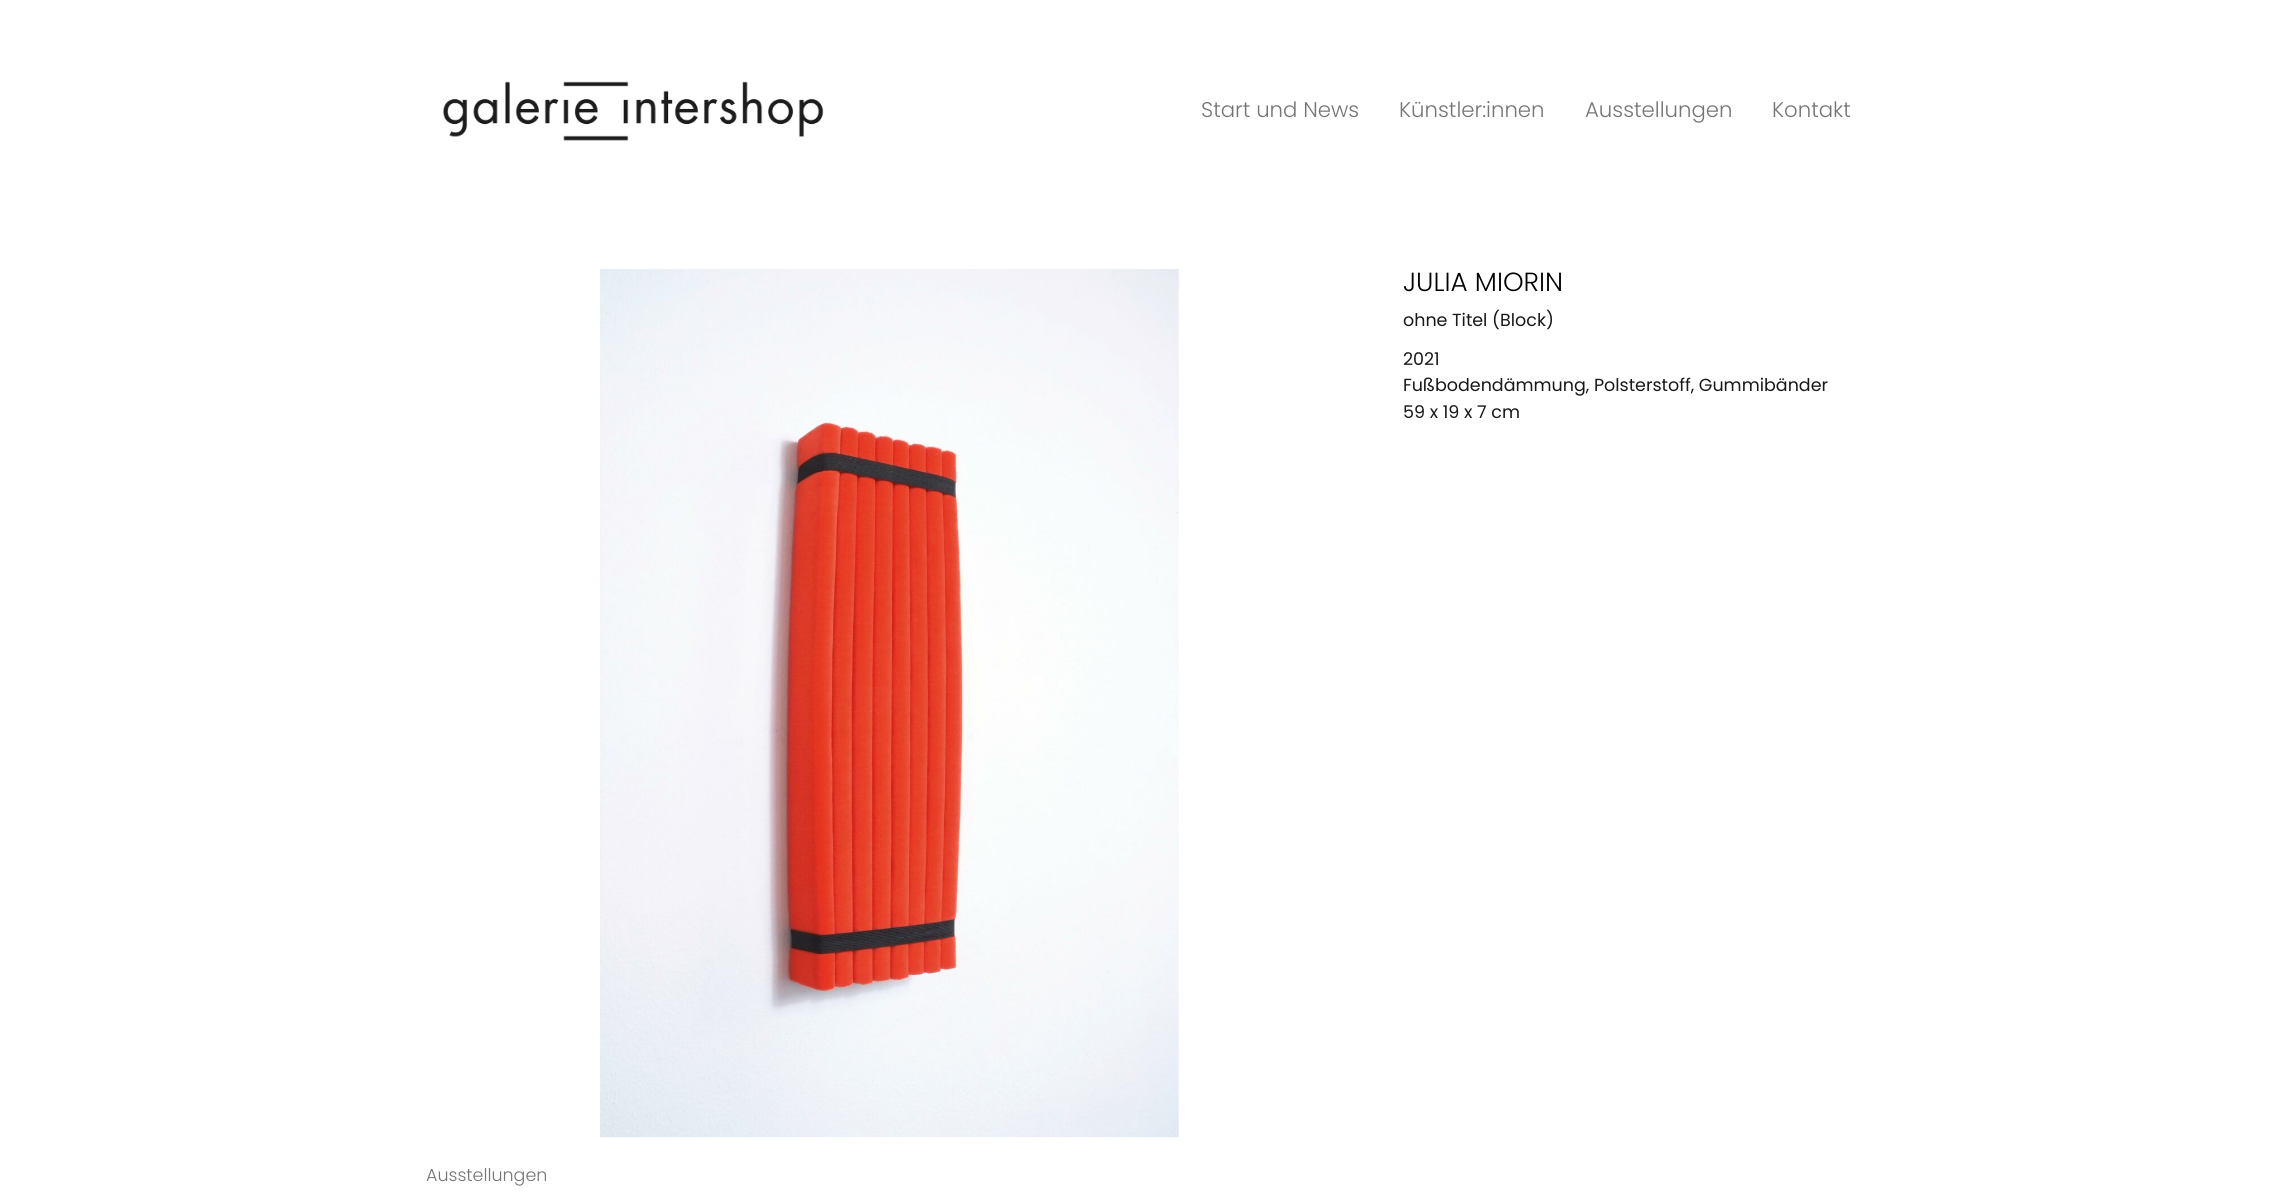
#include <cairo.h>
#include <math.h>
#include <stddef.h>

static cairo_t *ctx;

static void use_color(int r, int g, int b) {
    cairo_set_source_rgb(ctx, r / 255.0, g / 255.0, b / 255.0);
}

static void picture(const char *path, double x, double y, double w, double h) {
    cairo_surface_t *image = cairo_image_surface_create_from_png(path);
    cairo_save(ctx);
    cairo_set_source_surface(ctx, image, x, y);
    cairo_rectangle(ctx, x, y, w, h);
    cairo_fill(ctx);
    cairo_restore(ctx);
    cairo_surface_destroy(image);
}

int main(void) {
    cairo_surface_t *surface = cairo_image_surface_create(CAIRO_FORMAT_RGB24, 2277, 1199);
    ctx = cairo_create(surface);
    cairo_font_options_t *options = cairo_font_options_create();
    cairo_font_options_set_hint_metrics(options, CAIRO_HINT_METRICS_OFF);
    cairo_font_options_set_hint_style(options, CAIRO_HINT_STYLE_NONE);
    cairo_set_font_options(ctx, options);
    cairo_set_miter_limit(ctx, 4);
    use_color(255, 255, 255);
    cairo_paint(ctx);
    picture("img1.png", 442, 81, 382, 60);
    cairo_select_font_face(ctx, "Poppins Light", CAIRO_FONT_SLANT_NORMAL, CAIRO_FONT_WEIGHT_NORMAL);
    cairo_set_font_size(ctx, 21.25);
    use_color(117, 117, 117);
    cairo_move_to(ctx, 1201, 117);
    cairo_show_text(ctx, "Start und News");
    cairo_move_to(ctx, 1399, 117);
    cairo_show_text(ctx, "Künstler:innen");
    cairo_move_to(ctx, 1585, 117);
    cairo_show_text(ctx, "Ausstellungen");
    cairo_move_to(ctx, 1772, 117);
    cairo_show_text(ctx, "Kontakt");
    picture("img2.png", 600, 269, 579, 869);
    cairo_set_font_size(ctx, 26.25);
    use_color(0, 0, 0);
    cairo_move_to(ctx, 1403, 291);
    cairo_show_text(ctx, "JULIA MIORIN");
    cairo_select_font_face(ctx, "Poppins", CAIRO_FONT_SLANT_NORMAL, CAIRO_FONT_WEIGHT_NORMAL);
    cairo_set_font_size(ctx, 17.5);
    use_color(24, 24, 24);
    cairo_move_to(ctx, 1403, 326);
    cairo_show_text(ctx, "ohne Titel (Block)");
    cairo_move_to(ctx, 1403, 365);
    cairo_show_text(ctx, "2021");
    cairo_move_to(ctx, 1403, 391);
    cairo_show_text(ctx, "Fußbodendämmung, Polsterstoff, Gummibänder");
    cairo_move_to(ctx, 1403, 418);
    cairo_show_text(ctx, "59 x 19 x 7 cm");
    cairo_select_font_face(ctx, "Poppins Light", CAIRO_FONT_SLANT_NORMAL, CAIRO_FONT_WEIGHT_NORMAL);
    use_color(117, 117, 117);
    cairo_move_to(ctx, 426, 1181);
    cairo_show_text(ctx, "Ausstellungen");
    cairo_surface_write_to_png(surface, "result.png");
    cairo_font_options_destroy(options);
    cairo_destroy(ctx);
    cairo_surface_destroy(surface);
    return 0;
}
